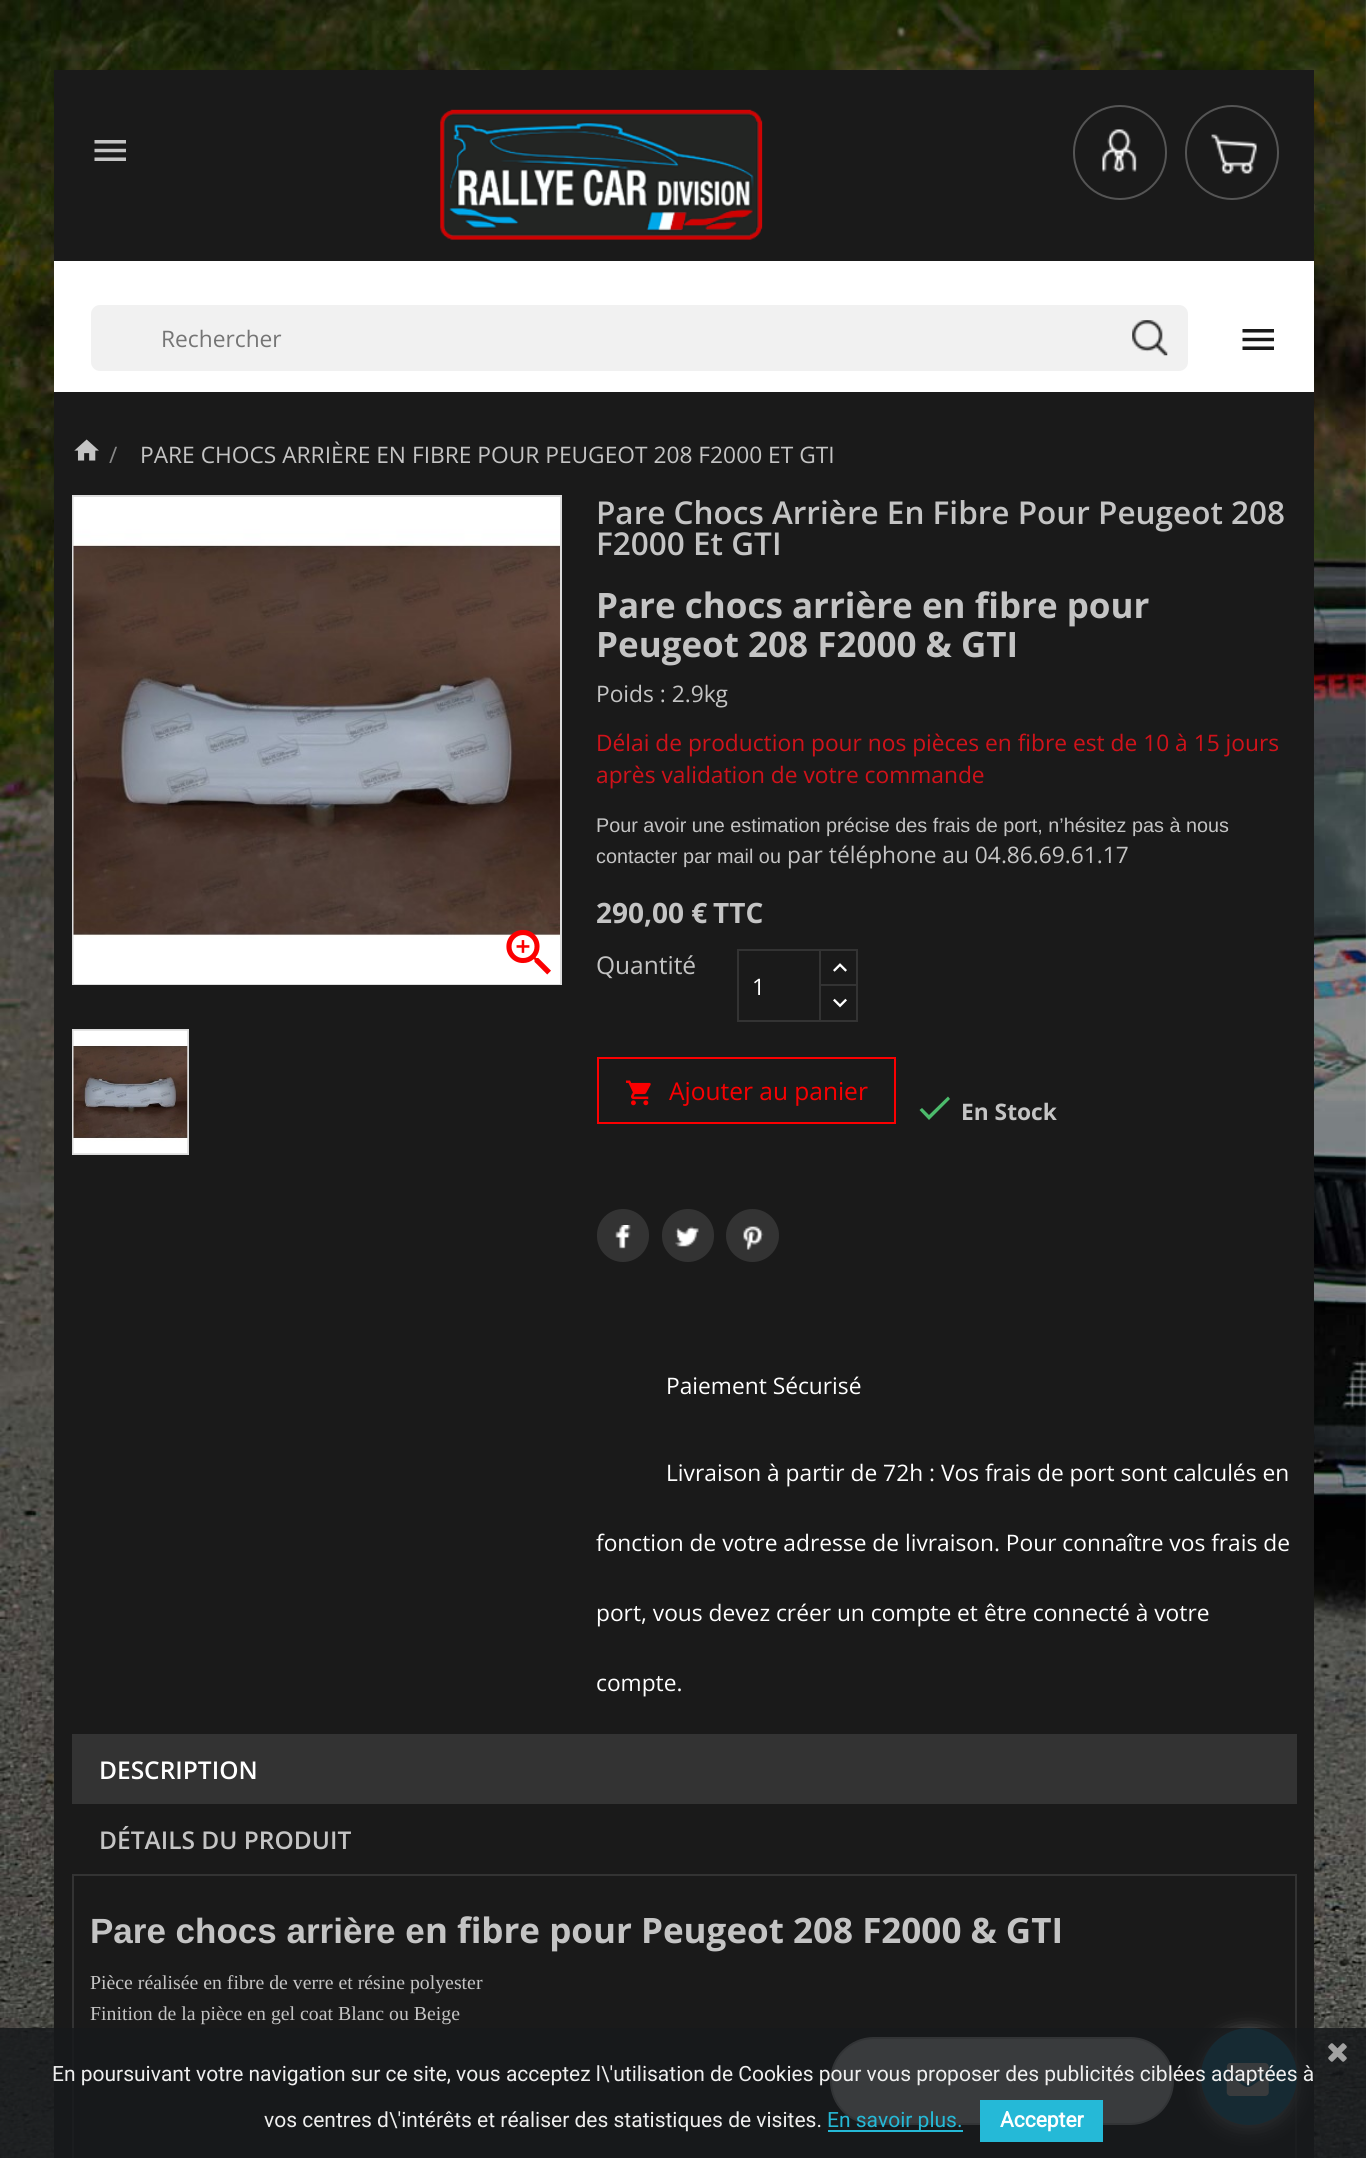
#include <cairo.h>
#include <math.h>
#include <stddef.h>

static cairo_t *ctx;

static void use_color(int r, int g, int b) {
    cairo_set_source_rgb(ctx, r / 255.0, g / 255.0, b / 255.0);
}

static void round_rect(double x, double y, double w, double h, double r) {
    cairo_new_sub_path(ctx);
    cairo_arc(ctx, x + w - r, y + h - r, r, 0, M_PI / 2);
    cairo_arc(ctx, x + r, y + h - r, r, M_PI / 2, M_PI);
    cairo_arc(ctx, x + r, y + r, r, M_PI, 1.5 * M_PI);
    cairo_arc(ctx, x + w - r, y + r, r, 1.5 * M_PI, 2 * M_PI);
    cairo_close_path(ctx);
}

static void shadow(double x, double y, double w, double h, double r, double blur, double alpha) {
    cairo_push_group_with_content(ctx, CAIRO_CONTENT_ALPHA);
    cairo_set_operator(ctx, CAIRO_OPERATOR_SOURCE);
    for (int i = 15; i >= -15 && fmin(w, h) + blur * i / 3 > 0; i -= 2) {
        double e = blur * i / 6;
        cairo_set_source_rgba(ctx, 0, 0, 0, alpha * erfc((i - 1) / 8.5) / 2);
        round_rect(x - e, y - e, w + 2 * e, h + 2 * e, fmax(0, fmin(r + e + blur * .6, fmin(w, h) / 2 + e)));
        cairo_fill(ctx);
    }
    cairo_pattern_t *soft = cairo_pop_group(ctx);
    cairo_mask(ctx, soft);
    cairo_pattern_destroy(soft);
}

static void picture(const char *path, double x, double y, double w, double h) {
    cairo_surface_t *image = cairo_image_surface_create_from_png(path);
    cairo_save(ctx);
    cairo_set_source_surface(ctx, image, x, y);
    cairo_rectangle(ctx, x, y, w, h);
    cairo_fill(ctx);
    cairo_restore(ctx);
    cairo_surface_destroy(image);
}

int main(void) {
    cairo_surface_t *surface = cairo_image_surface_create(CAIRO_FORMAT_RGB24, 1366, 2158);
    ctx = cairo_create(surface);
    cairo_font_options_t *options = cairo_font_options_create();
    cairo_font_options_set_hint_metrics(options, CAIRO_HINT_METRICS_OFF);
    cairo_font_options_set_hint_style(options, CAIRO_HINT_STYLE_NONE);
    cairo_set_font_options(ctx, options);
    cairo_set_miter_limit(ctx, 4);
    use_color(255, 255, 255);
    cairo_paint(ctx);
    picture("img1.png", 0, 0, 1366, 2158);
    use_color(26, 26, 26);
    cairo_rectangle(ctx, 54, 392, 1260, 1766);
    cairo_fill(ctx);
    use_color(255, 255, 255);
    cairo_rectangle(ctx, 54, 261, 1260, 131);
    cairo_fill(ctx);
    use_color(26, 26, 26);
    cairo_rectangle(ctx, 54, 70, 1260, 191);
    cairo_fill(ctx);
    picture("img2.png", 94, 140, 32, 21);
    picture("img3.png", 440, 109, 323, 131);
    picture("img4.png", 1102, 129, 35, 43);
    round_rect(1074, 106, 92, 93, 46);
    use_color(85, 85, 85);
    cairo_stroke(ctx);
    picture("img5.png", 1211, 134, 46, 40);
    round_rect(1186, 106, 92, 93, 46);
    cairo_stroke(ctx);
    use_color(241, 241, 241);
    round_rect(91, 305, 1097, 66, 9);
    cairo_fill(ctx);
    cairo_select_font_face(ctx, "Open Sans", CAIRO_FONT_SLANT_NORMAL, CAIRO_FONT_WEIGHT_NORMAL);
    cairo_set_font_size(ctx, 22.75);
    use_color(117, 117, 117);
    cairo_move_to(ctx, 161, 347);
    cairo_show_text(ctx, "Rechercher");
    picture("img6.png", 1132, 320, 36, 36);
    picture("img7.png", 1242, 329, 32, 21);
    picture("img8.png", 74, 439, 25, 22);
    use_color(135, 135, 135);
    cairo_move_to(ctx, 109, 463);
    cairo_show_text(ctx, "/");
    use_color(196, 196, 196);
    cairo_move_to(ctx, 140, 463);
    cairo_show_text(ctx, "PARE CHOCS ARRIÈRE EN FIBRE POUR PEUGEOT 208 F2000 ET GTI");
    cairo_rectangle(ctx, 73, 496, 488, 488);
    use_color(221, 221, 221);
    cairo_stroke(ctx);
    use_color(255, 255, 255);
    cairo_rectangle(ctx, 74, 983, 486, 1);
    cairo_fill(ctx);
    picture("img9.png", 73, 497, 487, 487);
    picture("img10.png", 506, 929, 45, 46);
    cairo_rectangle(ctx, 73, 1030, 115, 124);
    use_color(221, 221, 221);
    cairo_stroke(ctx);
    picture("img11.png", 73, 1030, 115, 124);
    cairo_select_font_face(ctx, "Open Sans SemiBold", CAIRO_FONT_SLANT_NORMAL, CAIRO_FONT_WEIGHT_NORMAL);
    cairo_set_font_size(ctx, 31.5);
    use_color(196, 196, 196);
    cairo_move_to(ctx, 596, 524);
    cairo_show_text(ctx, "Pare Chocs Arrière En Fibre Pour Peugeot 208");
    cairo_move_to(ctx, 596, 555);
    cairo_show_text(ctx, "F2000 Et GTI");
    cairo_select_font_face(ctx, "Open Sans", CAIRO_FONT_SLANT_NORMAL, CAIRO_FONT_WEIGHT_BOLD);
    cairo_set_font_size(ctx, 35);
    cairo_move_to(ctx, 596, 618);
    cairo_show_text(ctx, "Pare chocs arrière en fibre pour");
    cairo_move_to(ctx, 596, 657);
    cairo_show_text(ctx, "Peugeot 208 F2000 & GTI");
    cairo_select_font_face(ctx, "Open Sans", CAIRO_FONT_SLANT_NORMAL, CAIRO_FONT_WEIGHT_NORMAL);
    cairo_set_font_size(ctx, 22.75);
    cairo_move_to(ctx, 596, 702);
    cairo_show_text(ctx, "Poids : 2.9kg");
    use_color(208, 18, 26);
    cairo_move_to(ctx, 596, 751);
    cairo_show_text(ctx, "Délai de production pour nos pièces en fibre est de 10 à 15 jours");
    cairo_move_to(ctx, 596, 783);
    cairo_show_text(ctx, "après validation de votre commande");
    cairo_select_font_face(ctx, "Liberation Sans", CAIRO_FONT_SLANT_NORMAL, CAIRO_FONT_WEIGHT_NORMAL);
    cairo_set_font_size(ctx, 19.8);
    use_color(196, 196, 196);
    cairo_move_to(ctx, 596, 832);
    cairo_show_text(ctx, "Pour avoir une estimation précise des frais de port, n’hésitez pas à nous");
    cairo_move_to(ctx, 596, 863);
    cairo_show_text(ctx, "contacter par mail ou");
    cairo_select_font_face(ctx, "Open Sans", CAIRO_FONT_SLANT_NORMAL, CAIRO_FONT_WEIGHT_NORMAL);
    cairo_set_font_size(ctx, 22.75);
    cairo_move_to(ctx, 787, 863);
    cairo_show_text(ctx, "par téléphone au 04.86.69.61.17");
    cairo_select_font_face(ctx, "Open Sans", CAIRO_FONT_SLANT_NORMAL, CAIRO_FONT_WEIGHT_BOLD);
    cairo_set_font_size(ctx, 28);
    cairo_move_to(ctx, 596, 923);
    cairo_show_text(ctx, "290,00 €");
    cairo_move_to(ctx, 713, 923);
    cairo_show_text(ctx, "TTC");
    cairo_select_font_face(ctx, "Open Sans", CAIRO_FONT_SLANT_NORMAL, CAIRO_FONT_WEIGHT_NORMAL);
    cairo_set_font_size(ctx, 24.5);
    cairo_move_to(ctx, 596, 974);
    cairo_show_text(ctx, "Quantité");
    cairo_rectangle(ctx, 820, 950, 37, 36);
    use_color(51, 51, 51);
    cairo_stroke(ctx);
    use_color(26, 26, 26);
    cairo_rectangle(ctx, 821, 986, 35, 1);
    cairo_fill(ctx);
    cairo_rectangle(ctx, 820, 985, 37, 36);
    use_color(51, 51, 51);
    cairo_stroke(ctx);
    cairo_rectangle(ctx, 738, 950, 82, 71);
    cairo_stroke(ctx);
    cairo_set_font_size(ctx, 22.75);
    use_color(255, 255, 255);
    cairo_move_to(ctx, 752, 995);
    cairo_show_text(ctx, "1");
    picture("img12.png", 833, 963, 14, 9);
    picture("img13.png", 833, 998, 14, 10);
    cairo_rectangle(ctx, 598, 1058, 297, 65);
    use_color(251, 0, 1);
    cairo_stroke(ctx);
    picture("img14.png", 625, 1080, 26, 26);
    cairo_set_font_size(ctx, 24.5);
    cairo_move_to(ctx, 669, 1100);
    cairo_show_text(ctx, "Ajouter au panier");
    use_color(76, 187, 108);
    cairo_new_path(ctx);
    cairo_move_to(ctx, 929, 1115);
    cairo_line_to(ctx, 948, 1096.5);
    cairo_line_to(ctx, 950, 1099);
    cairo_line_to(ctx, 929, 1120);
    cairo_line_to(ctx, 919.5, 1110);
    cairo_line_to(ctx, 922, 1108);
    cairo_close_path(ctx);
    cairo_fill(ctx);
    cairo_select_font_face(ctx, "Open Sans", CAIRO_FONT_SLANT_NORMAL, CAIRO_FONT_WEIGHT_BOLD);
    cairo_set_font_size(ctx, 22.75);
    use_color(196, 196, 196);
    cairo_move_to(ctx, 961, 1120);
    cairo_show_text(ctx, "En Stock");
    use_color(51, 51, 51);
    round_rect(597, 1209, 52, 53, 26);
    cairo_fill(ctx);
    picture("img15.png", 615, 1225, 16, 24);
    round_rect(662, 1209, 52, 53, 26);
    cairo_fill(ctx);
    picture("img16.png", 675, 1226, 24, 21);
    cairo_arc(ctx, 752.5, 1235.5, 26.5, 0, 2 * M_PI);
    cairo_fill(ctx);
    picture("img17.png", 743, 1226, 21, 24);
    cairo_select_font_face(ctx, "Open Sans", CAIRO_FONT_SLANT_NORMAL, CAIRO_FONT_WEIGHT_NORMAL);
    use_color(255, 255, 255);
    cairo_move_to(ctx, 666, 1394);
    cairo_show_text(ctx, "Paiement Sécurisé");
    cairo_move_to(ctx, 666, 1481);
    cairo_show_text(ctx, "Livraison à partir de 72h : Vos frais de port sont calculés en");
    cairo_move_to(ctx, 596, 1551);
    cairo_show_text(ctx, "fonction de votre adresse de livraison. Pour connaître vos frais de");
    cairo_move_to(ctx, 596, 1621);
    cairo_show_text(ctx, "port, vous devez créer un compte et être connecté à votre");
    cairo_move_to(ctx, 596, 1691);
    cairo_show_text(ctx, "compte.");
    use_color(51, 51, 51);
    cairo_rectangle(ctx, 72, 1734, 1225, 70);
    cairo_fill(ctx);
    cairo_select_font_face(ctx, "Open Sans SemiBold", CAIRO_FONT_SLANT_NORMAL, CAIRO_FONT_WEIGHT_NORMAL);
    cairo_set_font_size(ctx, 24.5);
    use_color(255, 255, 255);
    cairo_move_to(ctx, 99, 1779);
    cairo_show_text(ctx, "DESCRIPTION");
    use_color(196, 196, 196);
    cairo_move_to(ctx, 99, 1849);
    cairo_show_text(ctx, "DÉTAILS DU PRODUIT");
    cairo_rectangle(ctx, 73, 1875, 1223, 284);
    use_color(51, 51, 51);
    cairo_stroke(ctx);
    cairo_select_font_face(ctx, "Liberation Sans", CAIRO_FONT_SLANT_NORMAL, CAIRO_FONT_WEIGHT_BOLD);
    cairo_set_font_size(ctx, 35);
    use_color(196, 196, 196);
    cairo_move_to(ctx, 90, 1943);
    cairo_show_text(ctx, "Pare chocs arrière e");
    cairo_select_font_face(ctx, "Open Sans", CAIRO_FONT_SLANT_NORMAL, CAIRO_FONT_WEIGHT_BOLD);
    cairo_move_to(ctx, 425, 1943);
    cairo_show_text(ctx, "n fibre pour Peugeot 208 F2000 & GTI");
    cairo_select_font_face(ctx, "Liberation Serif", CAIRO_FONT_SLANT_NORMAL, CAIRO_FONT_WEIGHT_NORMAL);
    cairo_set_font_size(ctx, 19.8);
    cairo_move_to(ctx, 90, 1989);
    cairo_show_text(ctx, "Pièce réalisée en fibre de verre et résine polyester");
    cairo_move_to(ctx, 90, 2020);
    cairo_show_text(ctx, "Finition de la pièce en gel coat Blanc ou Beige");
    use_color(153, 153, 153);
    shadow(1201, 2034, 96, 96, 48, 9, 1);
    use_color(255, 255, 255);
    round_rect(831, 2038, 342, 86, 43);
    cairo_fill_preserve(ctx);
    use_color(211, 211, 211);
    cairo_stroke(ctx);
    use_color(21, 139, 187);
    round_rect(1201, 2028, 96, 97, 48);
    cairo_fill(ctx);
    picture("img18.png", 1226, 2063, 43, 33);
    cairo_set_source_rgba(ctx, 0.09, 0.098, 0.11, 0.85);
    cairo_rectangle(ctx, 0, 2028, 1366, 130);
    cairo_fill(ctx);
    picture("img19.png", 1328, 2043, 19, 19);
    cairo_select_font_face(ctx, "Roboto", CAIRO_FONT_SLANT_NORMAL, CAIRO_FONT_WEIGHT_NORMAL);
    cairo_set_font_size(ctx, 21);
    use_color(239, 239, 239);
    cairo_move_to(ctx, 52, 2081);
    cairo_show_text(ctx, "En poursuivant votre navigation sur ce site, vous acceptez l\\'utilisation de Cookies pour vous proposer des publicités ciblées adaptées à");
    cairo_move_to(ctx, 264, 2127);
    cairo_show_text(ctx, "vos centres d\\'intérêts et réaliser des statistiques de visites.");
    use_color(37, 185, 215);
    cairo_rectangle(ctx, 828, 2130, 135, 2);
    cairo_fill(ctx);
    cairo_move_to(ctx, 827, 2127);
    cairo_show_text(ctx, "En savoir plus.");
    cairo_rectangle(ctx, 980, 2100, 123, 42);
    cairo_fill(ctx);
    cairo_select_font_face(ctx, "Roboto", CAIRO_FONT_SLANT_NORMAL, CAIRO_FONT_WEIGHT_BOLD);
    use_color(255, 255, 255);
    cairo_move_to(ctx, 1000, 2127);
    cairo_show_text(ctx, "Accepter");
    cairo_surface_write_to_png(surface, "result.png");
    cairo_font_options_destroy(options);
    cairo_destroy(ctx);
    cairo_surface_destroy(surface);
    return 0;
}
